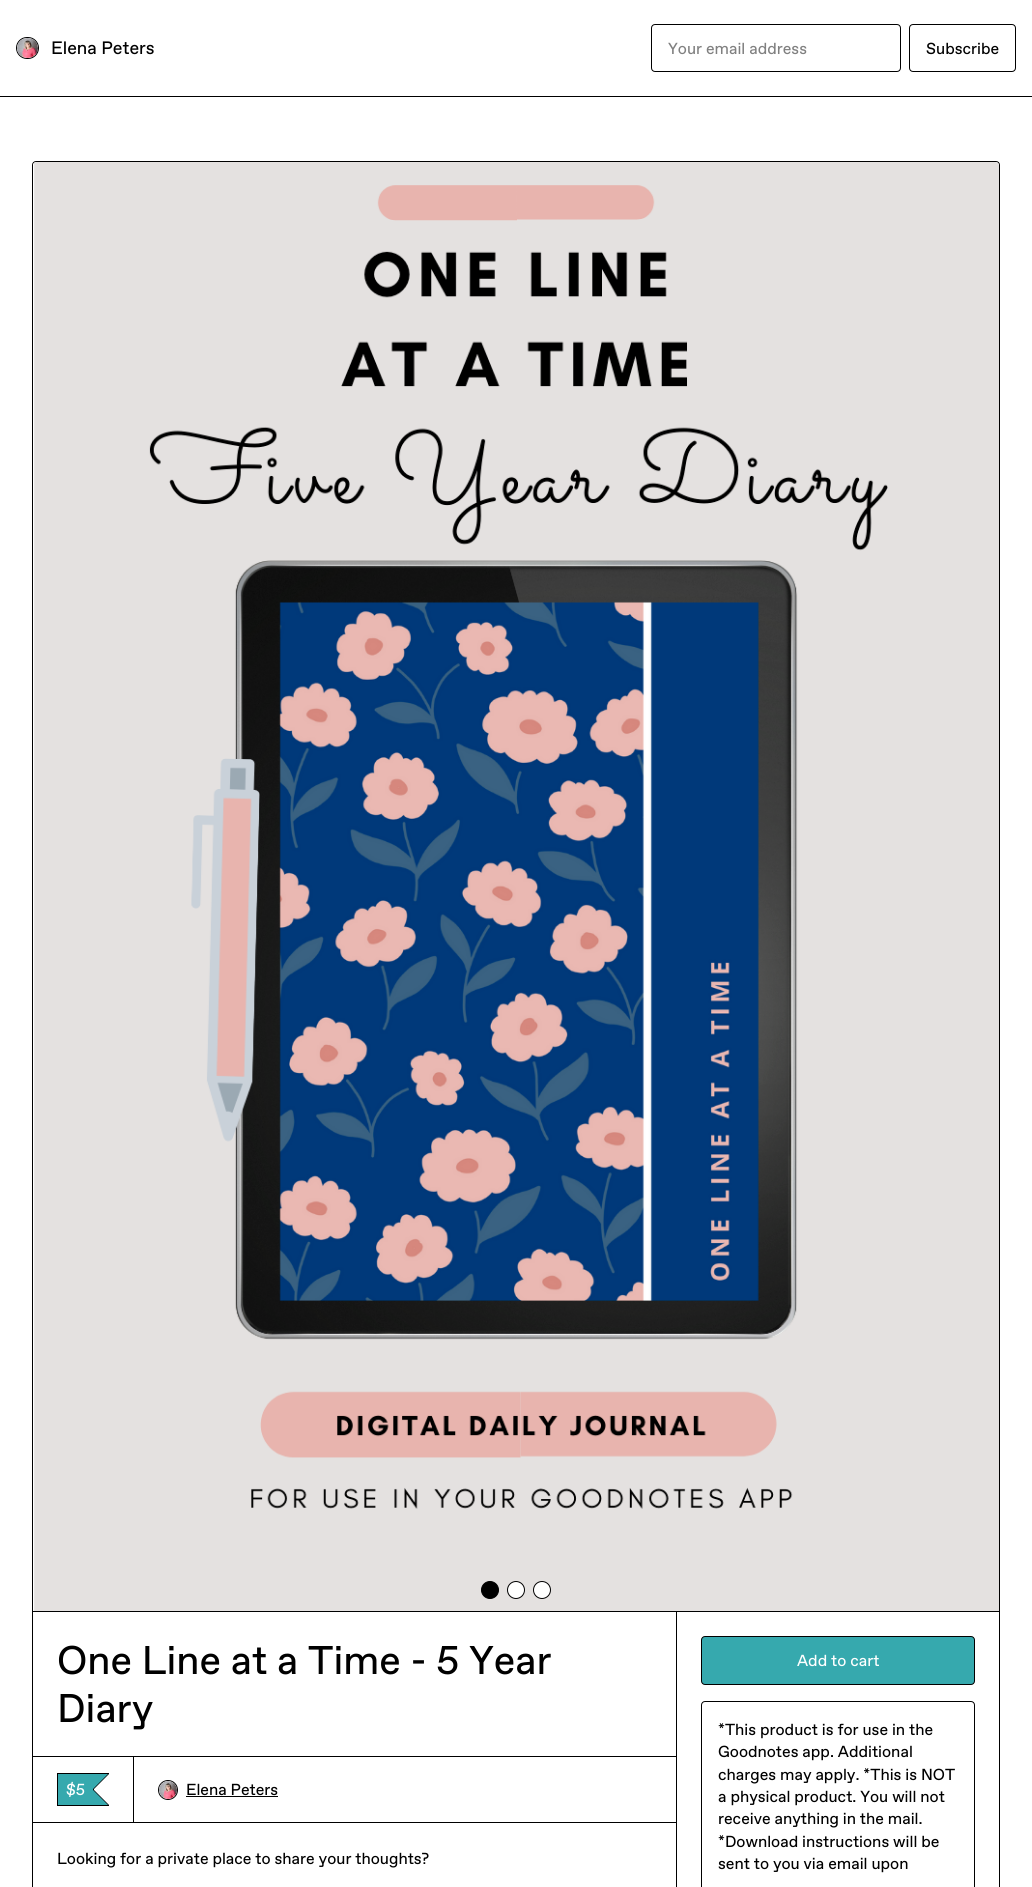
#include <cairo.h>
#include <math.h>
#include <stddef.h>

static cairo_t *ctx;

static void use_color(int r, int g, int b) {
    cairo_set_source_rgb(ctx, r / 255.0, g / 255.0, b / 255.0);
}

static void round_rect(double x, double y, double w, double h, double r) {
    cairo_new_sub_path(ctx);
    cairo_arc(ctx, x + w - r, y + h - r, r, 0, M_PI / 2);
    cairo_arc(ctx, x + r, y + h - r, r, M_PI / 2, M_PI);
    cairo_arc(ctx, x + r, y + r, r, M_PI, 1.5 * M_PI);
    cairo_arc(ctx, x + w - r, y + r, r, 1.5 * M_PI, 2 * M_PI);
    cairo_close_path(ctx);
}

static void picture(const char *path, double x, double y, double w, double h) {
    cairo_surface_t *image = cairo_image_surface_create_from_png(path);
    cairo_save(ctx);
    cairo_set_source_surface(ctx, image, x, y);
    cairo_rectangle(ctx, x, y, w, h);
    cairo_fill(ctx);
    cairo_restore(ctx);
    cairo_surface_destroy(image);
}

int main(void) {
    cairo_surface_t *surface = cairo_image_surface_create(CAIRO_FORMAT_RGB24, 1032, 1887);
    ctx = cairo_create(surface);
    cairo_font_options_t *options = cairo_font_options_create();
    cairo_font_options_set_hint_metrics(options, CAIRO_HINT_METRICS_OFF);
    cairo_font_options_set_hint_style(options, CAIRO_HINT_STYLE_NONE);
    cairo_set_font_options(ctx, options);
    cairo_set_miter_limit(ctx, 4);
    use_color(255, 255, 255);
    cairo_paint(ctx);
    use_color(0, 0, 0);
    cairo_rectangle(ctx, 0, 96, 1032, 1);
    cairo_fill(ctx);
    round_rect(16.5, 37.5, 22, 21, 10.5);
    cairo_set_line_width(ctx, 1);
    cairo_stroke(ctx);
    picture("img1.png", 17, 38, 21, 20);
    cairo_select_font_face(ctx, "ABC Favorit", CAIRO_FONT_SLANT_NORMAL, CAIRO_FONT_WEIGHT_NORMAL);
    cairo_set_font_size(ctx, 18);
    cairo_move_to(ctx, 51, 54);
    cairo_show_text(ctx, "Elena Peters");
    round_rect(651.5, 24.5, 249, 47, 3.5);
    cairo_stroke(ctx);
    cairo_set_font_size(ctx, 16);
    use_color(128, 128, 128);
    cairo_move_to(ctx, 668, 54);
    cairo_show_text(ctx, "Your email address");
    round_rect(909.5, 24.5, 106, 47, 3.5);
    use_color(0, 0, 0);
    cairo_stroke(ctx);
    cairo_move_to(ctx, 926, 54);
    cairo_show_text(ctx, "Subscribe");
    round_rect(32.5, 161.5, 967, 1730, 3.5);
    cairo_stroke(ctx);
    cairo_rectangle(ctx, 33, 1611, 966, 1);
    cairo_fill(ctx);
    picture("img2.png", 33, 162, 966, 1449);
    cairo_arc(ctx, 490, 1590, 8.5, 0, 2 * M_PI);
    cairo_fill_preserve(ctx);
    cairo_stroke(ctx);
    use_color(255, 255, 255);
    cairo_arc(ctx, 516, 1590, 8.5, 0, 2 * M_PI);
    cairo_fill_preserve(ctx);
    use_color(0, 0, 0);
    cairo_stroke(ctx);
    use_color(255, 255, 255);
    cairo_arc(ctx, 542, 1590, 8.5, 0, 2 * M_PI);
    cairo_fill_preserve(ctx);
    use_color(0, 0, 0);
    cairo_stroke(ctx);
    cairo_rectangle(ctx, 676, 1612, 1, 275);
    cairo_fill(ctx);
    cairo_set_font_size(ctx, 40);
    cairo_move_to(ctx, 57, 1674);
    cairo_show_text(ctx, "One Line at a Time - 5 Year");
    cairo_move_to(ctx, 57, 1722);
    cairo_show_text(ctx, "Diary");
    cairo_rectangle(ctx, 134, 1756, 542, 1);
    cairo_fill(ctx);
    cairo_rectangle(ctx, 32.5, 1756.5, 101, 66);
    cairo_stroke(ctx);
    cairo_rectangle(ctx, 57, 1773, 52, 1);
    cairo_fill(ctx);
    cairo_rectangle(ctx, 57, 1805, 52, 1);
    cairo_fill(ctx);
    cairo_rectangle(ctx, 57, 1773, 1, 33);
    cairo_fill(ctx);
    use_color(54, 169, 174);
    cairo_rectangle(ctx, 58, 1774, 35, 31);
    cairo_fill(ctx);
    use_color(0, 0, 0);
    cairo_new_path(ctx);
    cairo_move_to(ctx, 93, 1774);
    cairo_line_to(ctx, 109, 1774);
    cairo_line_to(ctx, 94, 1789);
    cairo_close_path(ctx);
    cairo_move_to(ctx, 109, 1805);
    cairo_line_to(ctx, 93, 1805);
    cairo_line_to(ctx, 94, 1790);
    cairo_close_path(ctx);
    cairo_fill(ctx);
    cairo_rectangle(ctx, 93, 1788, 1, 3);
    cairo_fill(ctx);
    use_color(54, 169, 174);
    cairo_new_path(ctx);
    cairo_move_to(ctx, 92, 1774);
    cairo_line_to(ctx, 108, 1774);
    cairo_line_to(ctx, 93, 1789);
    cairo_close_path(ctx);
    cairo_move_to(ctx, 108, 1805);
    cairo_line_to(ctx, 92, 1805);
    cairo_line_to(ctx, 93, 1790);
    cairo_close_path(ctx);
    cairo_fill(ctx);
    cairo_set_font_size(ctx, 16);
    use_color(255, 255, 255);
    cairo_move_to(ctx, 66, 1795);
    cairo_show_text(ctx, "$5");
    cairo_new_path(ctx);
    cairo_arc(ctx, 168, 1790, 9.5, 0, 2 * M_PI);
    use_color(0, 0, 0);
    cairo_stroke(ctx);
    picture("img3.png", 159, 1781, 18, 18);
    cairo_move_to(ctx, 186, 1795);
    cairo_show_text(ctx, "Elena Peters");
    cairo_rectangle(ctx, 186, 1796, 92, 1);
    cairo_fill(ctx);
    cairo_rectangle(ctx, 134, 1822, 542, 1);
    cairo_fill(ctx);
    cairo_move_to(ctx, 57, 1864);
    cairo_show_text(ctx, "Looking for a private place to share your thoughts?");
    use_color(54, 169, 174);
    round_rect(701.5, 1636.5, 273, 48, 3.5);
    cairo_fill_preserve(ctx);
    use_color(0, 0, 0);
    cairo_stroke(ctx);
    use_color(255, 255, 255);
    cairo_move_to(ctx, 797, 1666);
    cairo_show_text(ctx, "Add to cart");
    round_rect(701.5, 1701.5, 273, 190, 3.5);
    use_color(0, 0, 0);
    cairo_stroke(ctx);
    cairo_move_to(ctx, 718, 1735);
    cairo_show_text(ctx, "*This product is for use in the");
    cairo_move_to(ctx, 718, 1757);
    cairo_show_text(ctx, "Goodnotes app. Additional");
    cairo_move_to(ctx, 718, 1780);
    cairo_show_text(ctx, "charges may apply. *This is NOT");
    cairo_move_to(ctx, 718, 1802);
    cairo_show_text(ctx, "a physical product. You will not");
    cairo_move_to(ctx, 718, 1824);
    cairo_show_text(ctx, "receive anything in the mail.");
    cairo_move_to(ctx, 718, 1847);
    cairo_show_text(ctx, "*Download instructions will be");
    cairo_move_to(ctx, 718, 1869);
    cairo_show_text(ctx, "sent to you via email upon");
    cairo_surface_write_to_png(surface, "result.png");
    cairo_font_options_destroy(options);
    cairo_destroy(ctx);
    cairo_surface_destroy(surface);
    return 0;
}
